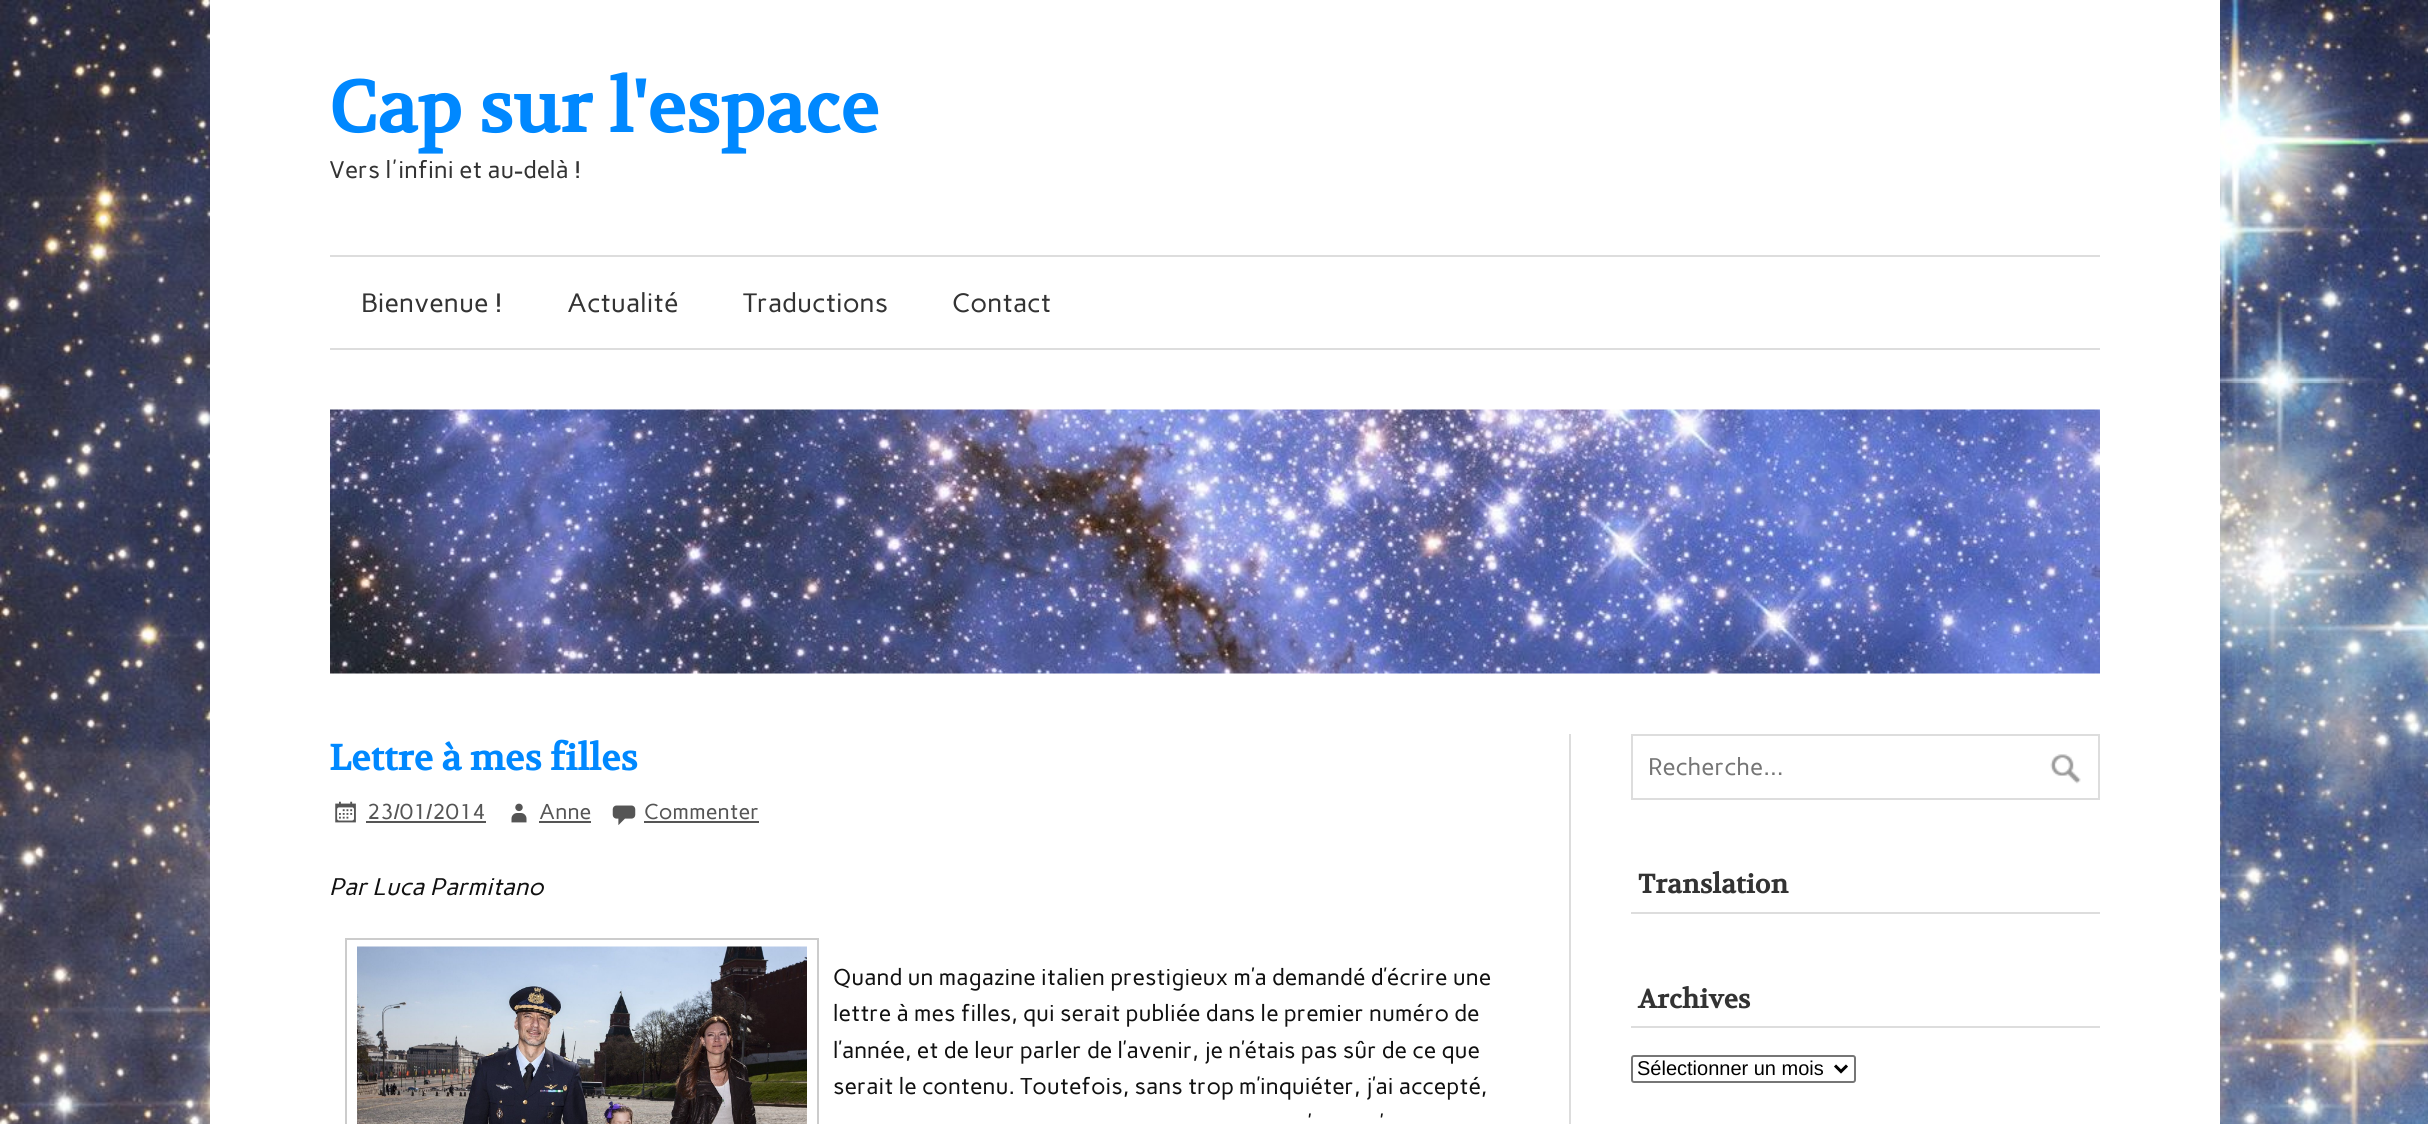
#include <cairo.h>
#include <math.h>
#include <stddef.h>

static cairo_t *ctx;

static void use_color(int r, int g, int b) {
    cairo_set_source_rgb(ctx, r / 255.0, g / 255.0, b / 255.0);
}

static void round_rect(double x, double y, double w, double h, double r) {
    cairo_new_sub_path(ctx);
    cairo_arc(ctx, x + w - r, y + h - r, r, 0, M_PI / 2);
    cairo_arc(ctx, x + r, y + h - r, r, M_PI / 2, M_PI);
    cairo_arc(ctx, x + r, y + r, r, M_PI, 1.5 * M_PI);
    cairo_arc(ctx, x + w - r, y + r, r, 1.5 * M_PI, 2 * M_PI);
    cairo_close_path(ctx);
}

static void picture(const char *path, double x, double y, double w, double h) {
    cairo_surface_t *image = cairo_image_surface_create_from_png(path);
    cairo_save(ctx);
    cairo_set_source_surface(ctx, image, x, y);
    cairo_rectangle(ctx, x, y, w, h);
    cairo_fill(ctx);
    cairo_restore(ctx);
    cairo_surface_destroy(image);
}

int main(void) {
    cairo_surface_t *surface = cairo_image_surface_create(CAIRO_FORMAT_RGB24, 2428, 1124);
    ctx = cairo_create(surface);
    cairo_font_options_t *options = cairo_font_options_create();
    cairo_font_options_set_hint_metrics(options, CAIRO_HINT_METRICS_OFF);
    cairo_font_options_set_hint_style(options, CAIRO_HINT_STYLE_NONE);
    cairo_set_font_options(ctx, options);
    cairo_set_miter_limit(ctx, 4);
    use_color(255, 255, 255);
    cairo_paint(ctx);
    picture("img1.png", 0, 0, 2428, 1124);
    use_color(255, 255, 255);
    cairo_rectangle(ctx, 210, 0, 2010, 1124);
    cairo_fill(ctx);
    cairo_select_font_face(ctx, "Volkhov", CAIRO_FONT_SLANT_NORMAL, CAIRO_FONT_WEIGHT_BOLD);
    cairo_set_font_size(ctx, 72);
    use_color(0, 136, 255);
    cairo_move_to(ctx, 329, 132);
    cairo_show_text(ctx, "Cap sur l'espace");
    cairo_select_font_face(ctx, "Carme", CAIRO_FONT_SLANT_NORMAL, CAIRO_FONT_WEIGHT_NORMAL);
    cairo_set_font_size(ctx, 24);
    use_color(51, 51, 51);
    cairo_move_to(ctx, 329, 178);
    cairo_show_text(ctx, "Vers l'infini et au-delà !");
    use_color(221, 221, 221);
    cairo_rectangle(ctx, 330, 255, 1770, 2);
    cairo_fill(ctx);
    cairo_rectangle(ctx, 330, 348, 1770, 2);
    cairo_fill(ctx);
    cairo_set_font_size(ctx, 26.5);
    use_color(51, 51, 51);
    cairo_move_to(ctx, 361, 312);
    cairo_show_text(ctx, "Bienvenue !");
    cairo_move_to(ctx, 567, 312);
    cairo_show_text(ctx, "Actualité");
    cairo_move_to(ctx, 743, 312);
    cairo_show_text(ctx, "Traductions");
    cairo_move_to(ctx, 952, 312);
    cairo_show_text(ctx, "Contact");
    picture("img2.png", 330, 409, 1770, 265);
    cairo_select_font_face(ctx, "Volkhov", CAIRO_FONT_SLANT_NORMAL, CAIRO_FONT_WEIGHT_BOLD);
    cairo_set_font_size(ctx, 36);
    use_color(0, 136, 255);
    cairo_move_to(ctx, 329, 770);
    cairo_show_text(ctx, "Lettre à mes filles");
    picture("img3.png", 335, 801, 21, 22);
    cairo_select_font_face(ctx, "Carme", CAIRO_FONT_SLANT_NORMAL, CAIRO_FONT_WEIGHT_NORMAL);
    cairo_set_font_size(ctx, 21.5);
    use_color(85, 85, 85);
    cairo_move_to(ctx, 367, 819);
    cairo_show_text(ctx, "23/01/2014");
    cairo_rectangle(ctx, 366, 821, 120, 2);
    cairo_fill(ctx);
    picture("img4.png", 511, 803, 16, 20);
    cairo_move_to(ctx, 539, 819);
    cairo_show_text(ctx, "Anne");
    cairo_rectangle(ctx, 539, 821, 52, 2);
    cairo_fill(ctx);
    picture("img5.png", 612, 805, 24, 20);
    cairo_move_to(ctx, 644, 819);
    cairo_show_text(ctx, "Commenter");
    cairo_rectangle(ctx, 644, 821, 115, 2);
    cairo_fill(ctx);
    cairo_select_font_face(ctx, "Carme", CAIRO_FONT_SLANT_ITALIC, CAIRO_FONT_WEIGHT_NORMAL);
    cairo_set_font_size(ctx, 24);
    use_color(17, 17, 17);
    cairo_move_to(ctx, 329, 895);
    cairo_show_text(ctx, "Par Luca Parmitano");
    cairo_rectangle(ctx, 346, 939, 472, 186);
    use_color(204, 204, 204);
    cairo_stroke(ctx);
    picture("img6.png", 357, 946, 450, 178);
    cairo_select_font_face(ctx, "Carme", CAIRO_FONT_SLANT_NORMAL, CAIRO_FONT_WEIGHT_NORMAL);
    cairo_set_font_size(ctx, 22.8);
    use_color(17, 17, 17);
    cairo_move_to(ctx, 833, 985);
    cairo_show_text(ctx, "Quand un magazine italien prestigieux m’a demandé d’écrire une");
    cairo_move_to(ctx, 833, 1021);
    cairo_show_text(ctx, "lettre à mes filles, qui serait publiée dans le premier numéro de");
    cairo_move_to(ctx, 833, 1058);
    cairo_show_text(ctx, "l’année, et de leur parler de l’avenir, je n’étais pas sûr de ce que");
    cairo_move_to(ctx, 833, 1094);
    cairo_show_text(ctx, "serait le contenu. Toutefois, sans trop m’inquiéter, j’ai accepté,");
    cairo_move_to(ctx, 1308, 1131);
    cairo_show_text(ctx, "’");
    cairo_move_to(ctx, 1380, 1131);
    cairo_show_text(ctx, "’");
    use_color(221, 221, 221);
    cairo_rectangle(ctx, 1569, 734, 2, 390);
    cairo_fill(ctx);
    cairo_rectangle(ctx, 1632, 735, 467, 64);
    cairo_stroke(ctx);
    cairo_set_font_size(ctx, 24);
    use_color(117, 117, 117);
    cairo_move_to(ctx, 1648, 775);
    cairo_show_text(ctx, "Recherche...");
    picture("img7.png", 2050, 754, 31, 30);
    use_color(221, 221, 221);
    cairo_rectangle(ctx, 1631, 912, 469, 2);
    cairo_fill(ctx);
    cairo_select_font_face(ctx, "Volkhov", CAIRO_FONT_SLANT_NORMAL, CAIRO_FONT_WEIGHT_BOLD);
    cairo_set_font_size(ctx, 26.5);
    use_color(51, 51, 51);
    cairo_move_to(ctx, 1638, 893);
    cairo_show_text(ctx, "Translation");
    use_color(221, 221, 221);
    cairo_rectangle(ctx, 1631, 1026, 469, 2);
    cairo_fill(ctx);
    use_color(51, 51, 51);
    cairo_move_to(ctx, 1638, 1008);
    cairo_show_text(ctx, "Archives");
    round_rect(1632, 1056, 223, 26, 2);
    use_color(118, 118, 118);
    cairo_stroke(ctx);
    cairo_new_path(ctx);
    cairo_move_to(ctx, 1835, 1065.5);
    cairo_line_to(ctx, 1841, 1071.5);
    cairo_line_to(ctx, 1847, 1065.5);
    use_color(0, 0, 0);
    cairo_set_line_width(ctx, 3);
    cairo_stroke(ctx);
    cairo_select_font_face(ctx, "Liberation Sans", CAIRO_FONT_SLANT_NORMAL, CAIRO_FONT_WEIGHT_NORMAL);
    cairo_set_font_size(ctx, 20);
    cairo_move_to(ctx, 1637, 1075);
    cairo_show_text(ctx, "Sélectionner un mois");
    cairo_surface_write_to_png(surface, "result.png");
    cairo_font_options_destroy(options);
    cairo_destroy(ctx);
    cairo_surface_destroy(surface);
    return 0;
}
